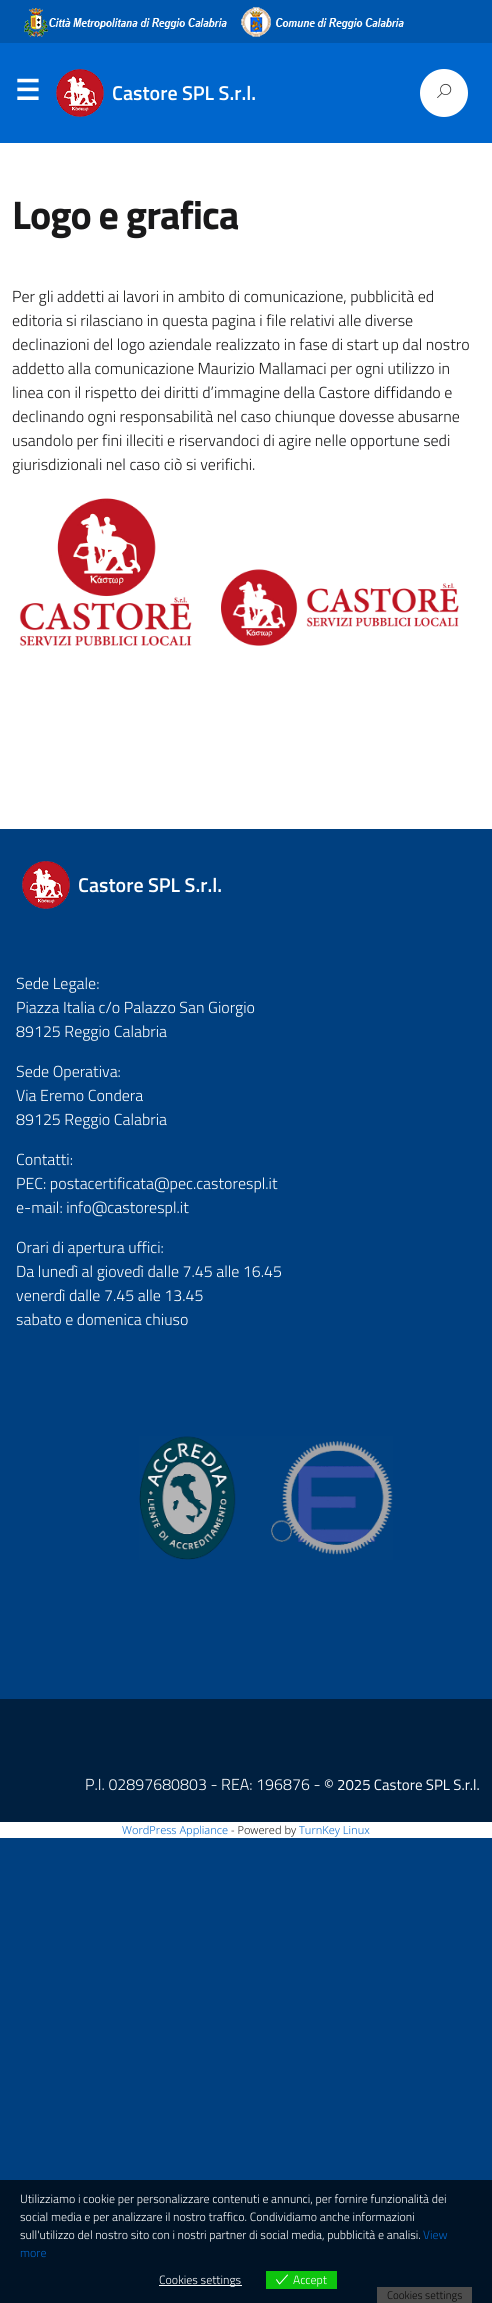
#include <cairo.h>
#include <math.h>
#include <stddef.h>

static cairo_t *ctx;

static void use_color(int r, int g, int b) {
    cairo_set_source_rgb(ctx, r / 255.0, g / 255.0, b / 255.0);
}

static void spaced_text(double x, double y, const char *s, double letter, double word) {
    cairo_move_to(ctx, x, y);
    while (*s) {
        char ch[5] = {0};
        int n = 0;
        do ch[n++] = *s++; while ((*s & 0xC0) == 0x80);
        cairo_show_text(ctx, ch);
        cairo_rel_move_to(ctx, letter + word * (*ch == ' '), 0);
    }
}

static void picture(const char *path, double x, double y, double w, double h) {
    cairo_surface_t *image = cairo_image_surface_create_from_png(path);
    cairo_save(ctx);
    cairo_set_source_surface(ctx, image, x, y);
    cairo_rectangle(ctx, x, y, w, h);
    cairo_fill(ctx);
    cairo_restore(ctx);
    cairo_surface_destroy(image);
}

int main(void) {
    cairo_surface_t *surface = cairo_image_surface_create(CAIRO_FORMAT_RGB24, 492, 2303);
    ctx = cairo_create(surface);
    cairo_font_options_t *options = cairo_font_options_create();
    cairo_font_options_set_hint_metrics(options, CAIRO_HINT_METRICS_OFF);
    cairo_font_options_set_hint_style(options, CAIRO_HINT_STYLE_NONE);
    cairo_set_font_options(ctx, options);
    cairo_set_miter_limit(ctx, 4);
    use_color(0, 64, 128);
    cairo_paint(ctx);
    use_color(0, 19, 38);
    cairo_rectangle(ctx, 0, 2180, 492, 123);
    cairo_fill(ctx);
    use_color(255, 255, 255);
    cairo_rectangle(ctx, 0, 143, 492, 1695);
    cairo_fill(ctx);
    use_color(0, 102, 204);
    cairo_rectangle(ctx, 0, 43, 492, 100);
    cairo_fill(ctx);
    use_color(0, 87, 173);
    cairo_rectangle(ctx, 0, 0, 492, 43);
    cairo_fill(ctx);
    picture("img1.png", 24, 7, 380, 30);
    cairo_select_font_face(ctx, "DejaVu Sans", CAIRO_FONT_SLANT_NORMAL, CAIRO_FONT_WEIGHT_BOLD);
    cairo_set_font_size(ctx, 28);
    use_color(255, 255, 255);
    cairo_move_to(ctx, 15, 100);
    cairo_show_text(ctx, "☰");
    picture("img2.png", 56, 69, 48, 48);
    cairo_select_font_face(ctx, "Titillium Web SemiBold", CAIRO_FONT_SLANT_NORMAL, CAIRO_FONT_WEIGHT_NORMAL);
    cairo_set_font_size(ctx, 20);
    cairo_move_to(ctx, 112, 100);
    cairo_show_text(ctx, "Castore SPL S.r.l.");
    cairo_new_path(ctx);
    cairo_arc(ctx, 444, 93, 24, 0, 2 * M_PI);
    cairo_fill(ctx);
    picture("img3.png", 437, 83, 15, 15);
    cairo_select_font_face(ctx, "Titillium Web", CAIRO_FONT_SLANT_NORMAL, CAIRO_FONT_WEIGHT_BOLD);
    cairo_set_font_size(ctx, 40);
    use_color(25, 25, 26);
    spaced_text(12, 229, "Logo e grafica", -1, 0);
    cairo_select_font_face(ctx, "Titillium Web Light", CAIRO_FONT_SLANT_NORMAL, CAIRO_FONT_WEIGHT_NORMAL);
    cairo_set_font_size(ctx, 16);
    cairo_move_to(ctx, 12, 302);
    cairo_show_text(ctx, "Per gli addetti ai lavori in ambito di comunicazione, pubblicità ed");
    cairo_move_to(ctx, 12, 326);
    cairo_show_text(ctx, "editoria si rilasciano in questa pagina i file relativi alle diverse");
    cairo_move_to(ctx, 12, 350);
    cairo_show_text(ctx, "declinazioni del logo aziendale realizzato in fase di start up dal nostro");
    cairo_move_to(ctx, 12, 374);
    cairo_show_text(ctx, "addetto alla comunicazione Maurizio Mallamaci per ogni utilizzo in");
    cairo_move_to(ctx, 12, 398);
    cairo_show_text(ctx, "linea con il rispetto dei diritti d’immagine della Castore diffidando e");
    cairo_move_to(ctx, 12, 422);
    cairo_show_text(ctx, "declinando ogni responsabilità nel caso chiunque dovesse abusarne");
    cairo_move_to(ctx, 12, 446);
    cairo_show_text(ctx, "usandolo per fini illeciti e riservandoci di agire nelle opportune sedi");
    cairo_move_to(ctx, 12, 470);
    cairo_show_text(ctx, "giurisdizionali nel caso ciò si verifichi.");
    picture("img4.png", 19, 498, 440, 148);
    use_color(0, 64, 128);
    cairo_rectangle(ctx, 0, 829, 492, 870);
    cairo_fill(ctx);
    picture("img5.png", 22, 861, 48, 48);
    cairo_select_font_face(ctx, "Titillium Web SemiBold", CAIRO_FONT_SLANT_NORMAL, CAIRO_FONT_WEIGHT_NORMAL);
    cairo_set_font_size(ctx, 20);
    use_color(255, 255, 255);
    cairo_move_to(ctx, 78, 892);
    cairo_show_text(ctx, "Castore SPL S.r.l.");
    cairo_select_font_face(ctx, "Titillium Web Light", CAIRO_FONT_SLANT_NORMAL, CAIRO_FONT_WEIGHT_NORMAL);
    cairo_set_font_size(ctx, 16);
    cairo_move_to(ctx, 16, 989);
    cairo_show_text(ctx, "Sede Legale:");
    cairo_move_to(ctx, 16, 1013);
    cairo_show_text(ctx, "Piazza Italia c/o Palazzo San Giorgio");
    cairo_move_to(ctx, 16, 1037);
    cairo_show_text(ctx, "89125 Reggio Calabria");
    cairo_move_to(ctx, 16, 1077);
    cairo_show_text(ctx, "Sede Operativa:");
    cairo_move_to(ctx, 16, 1101);
    cairo_show_text(ctx, "Via Eremo Condera");
    cairo_move_to(ctx, 16, 1125);
    cairo_show_text(ctx, "89125 Reggio Calabria");
    cairo_move_to(ctx, 16, 1165);
    cairo_show_text(ctx, "Contatti:");
    cairo_move_to(ctx, 16, 1189);
    cairo_show_text(ctx, "PEC: postacertificata@pec.castorespl.it");
    cairo_move_to(ctx, 16, 1213);
    cairo_show_text(ctx, "e-mail: info@castorespl.it");
    cairo_move_to(ctx, 16, 1253);
    cairo_show_text(ctx, "Orari di apertura uffici:");
    cairo_move_to(ctx, 16, 1277);
    cairo_show_text(ctx, "Da lunedì al giovedì dalle 7.45 alle 16.45");
    cairo_move_to(ctx, 16, 1301);
    cairo_show_text(ctx, "venerdì dalle 7.45 alle 13.45");
    cairo_move_to(ctx, 16, 1325);
    cairo_show_text(ctx, "sabato e domenica chiuso");
    picture("img6.png", 139, 1436, 254, 124);
    use_color(0, 32, 64);
    cairo_rectangle(ctx, 0, 1699, 492, 123);
    cairo_fill(ctx);
    use_color(255, 255, 255);
    cairo_move_to(ctx, 85, 1790);
    cairo_show_text(ctx, "P.I. 02897680803 - REA: 196876 -");
    cairo_select_font_face(ctx, "Titillium Web", CAIRO_FONT_SLANT_NORMAL, CAIRO_FONT_WEIGHT_NORMAL);
    cairo_set_font_size(ctx, 15);
    cairo_move_to(ctx, 324, 1790);
    cairo_show_text(ctx, "© 2025 Castore SPL S.r.l.");
    cairo_select_font_face(ctx, "Noto Sans Light", CAIRO_FONT_SLANT_NORMAL, CAIRO_FONT_WEIGHT_NORMAL);
    cairo_set_font_size(ctx, 11);
    use_color(0, 102, 204);
    cairo_move_to(ctx, 122, 1834);
    cairo_show_text(ctx, "WordPress Appliance");
    use_color(25, 25, 26);
    cairo_move_to(ctx, 231, 1834);
    cairo_show_text(ctx, "- Powered by");
    use_color(0, 102, 204);
    cairo_move_to(ctx, 299, 1834);
    cairo_show_text(ctx, "TurnKey Linux");
    cairo_select_font_face(ctx, "Titillium Web Light", CAIRO_FONT_SLANT_NORMAL, CAIRO_FONT_WEIGHT_NORMAL);
    cairo_set_font_size(ctx, 12);
    use_color(255, 255, 255);
    cairo_move_to(ctx, 20, 2203);
    cairo_show_text(ctx, "Utilizziamo i cookie per personalizzare contenuti e annunci, per fornire funzionalità dei");
    cairo_move_to(ctx, 20, 2221);
    cairo_show_text(ctx, "social media e per analizzare il nostro traffico. Condividiamo anche informazioni");
    cairo_move_to(ctx, 20, 2239);
    cairo_show_text(ctx, "sull'utilizzo del nostro sito con i nostri partner di social media, pubblicità e analisi.");
    use_color(0, 102, 204);
    cairo_move_to(ctx, 423, 2239);
    cairo_show_text(ctx, "View");
    cairo_move_to(ctx, 20, 2257);
    cairo_show_text(ctx, "more");
    use_color(255, 255, 255);
    cairo_rectangle(ctx, 159, 2285, 83, 1);
    cairo_fill(ctx);
    cairo_move_to(ctx, 159, 2284);
    cairo_show_text(ctx, "Cookies settings");
    use_color(14, 197, 14);
    cairo_rectangle(ctx, 266, 2271, 71, 18);
    cairo_fill(ctx);
    picture("img7.png", 276, 2274, 12, 11);
    use_color(255, 255, 255);
    cairo_move_to(ctx, 293, 2284);
    cairo_show_text(ctx, "Accept");
    use_color(77, 77, 77);
    cairo_rectangle(ctx, 377, 2287, 95, 16);
    cairo_fill(ctx);
    cairo_set_font_size(ctx, 11);
    use_color(8, 8, 8);
    cairo_move_to(ctx, 387, 2299);
    cairo_show_text(ctx, "Cookies settings");
    cairo_surface_write_to_png(surface, "result.png");
    cairo_font_options_destroy(options);
    cairo_destroy(ctx);
    cairo_surface_destroy(surface);
    return 0;
}
